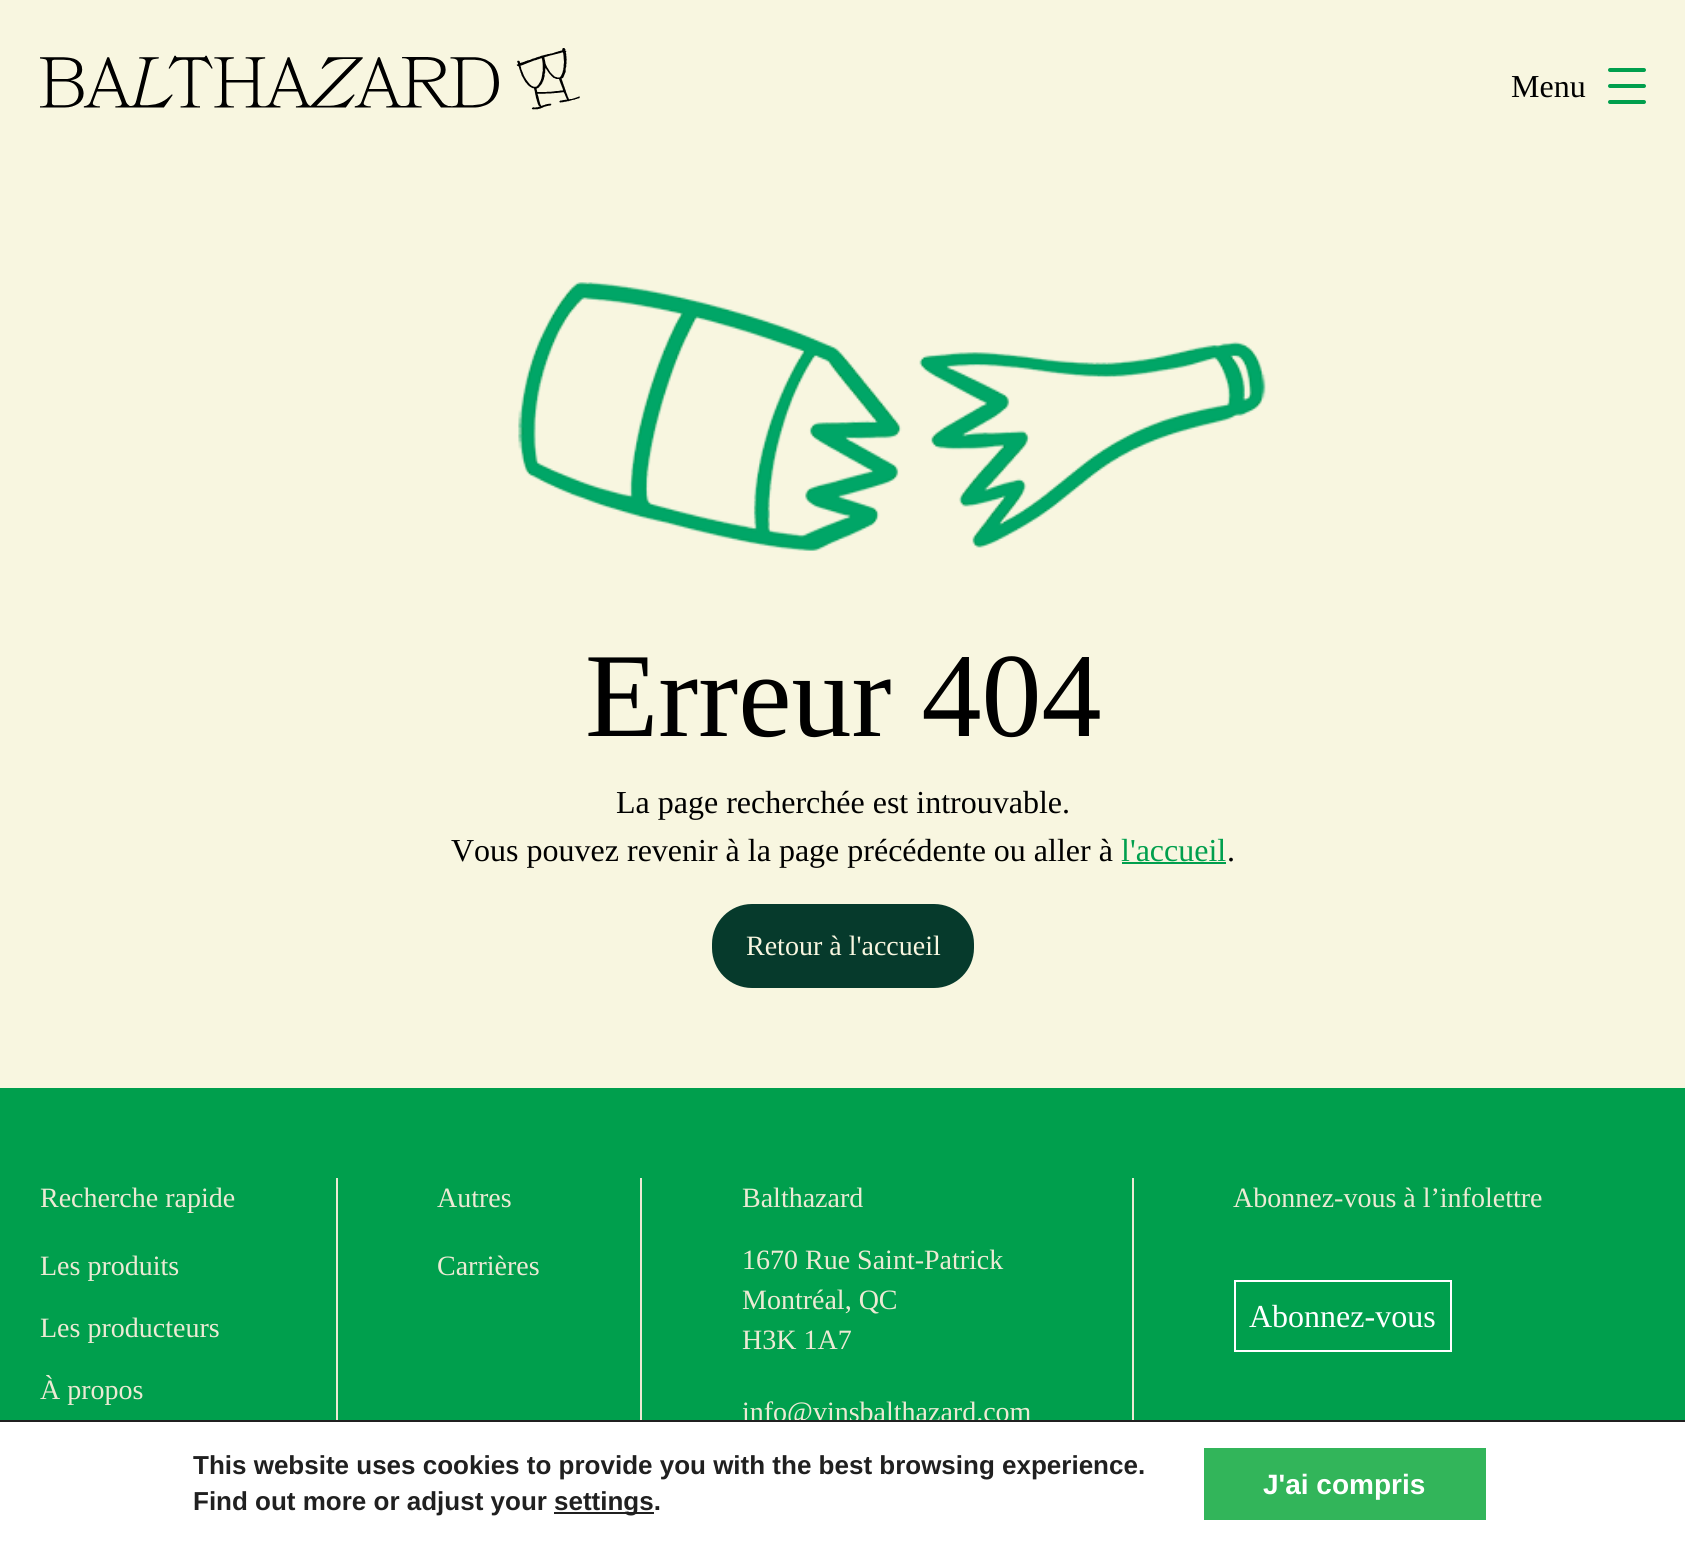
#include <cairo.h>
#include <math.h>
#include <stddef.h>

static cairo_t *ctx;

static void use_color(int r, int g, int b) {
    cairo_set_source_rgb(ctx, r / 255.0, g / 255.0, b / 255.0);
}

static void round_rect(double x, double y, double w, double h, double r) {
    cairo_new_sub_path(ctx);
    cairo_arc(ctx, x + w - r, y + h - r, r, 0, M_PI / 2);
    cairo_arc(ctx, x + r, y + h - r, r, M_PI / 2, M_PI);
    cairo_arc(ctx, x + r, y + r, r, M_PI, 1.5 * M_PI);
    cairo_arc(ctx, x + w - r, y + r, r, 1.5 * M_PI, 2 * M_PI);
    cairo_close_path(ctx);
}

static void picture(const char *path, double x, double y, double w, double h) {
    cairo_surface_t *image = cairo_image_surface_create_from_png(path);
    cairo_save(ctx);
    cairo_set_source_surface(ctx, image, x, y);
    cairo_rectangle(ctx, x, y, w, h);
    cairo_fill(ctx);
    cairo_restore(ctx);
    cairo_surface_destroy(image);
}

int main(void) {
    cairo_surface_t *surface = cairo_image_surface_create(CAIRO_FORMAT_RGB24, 1685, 1545);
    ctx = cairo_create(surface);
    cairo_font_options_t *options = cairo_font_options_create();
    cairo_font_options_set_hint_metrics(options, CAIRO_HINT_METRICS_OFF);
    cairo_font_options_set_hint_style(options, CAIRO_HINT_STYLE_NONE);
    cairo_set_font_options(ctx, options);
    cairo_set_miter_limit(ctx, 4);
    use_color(248, 246, 224);
    cairo_paint(ctx);
    picture("img1.png", 40, 48, 540, 62);
    cairo_select_font_face(ctx, "Liberation Serif", CAIRO_FONT_SLANT_NORMAL, CAIRO_FONT_WEIGHT_NORMAL);
    cairo_set_font_size(ctx, 32);
    use_color(0, 0, 0);
    cairo_move_to(ctx, 1511, 97);
    cairo_show_text(ctx, "Menu");
    use_color(0, 159, 77);
    round_rect(1608, 68, 38, 4, 2);
    cairo_fill(ctx);
    round_rect(1608, 84, 38, 4, 2);
    cairo_fill(ctx);
    round_rect(1608, 100, 38, 4, 2);
    cairo_fill(ctx);
    picture("img2.png", 518, 282, 748, 269);
    cairo_set_font_size(ctx, 120);
    use_color(0, 0, 0);
    cairo_move_to(ctx, 585, 736);
    cairo_show_text(ctx, "Erreur 404");
    cairo_set_font_size(ctx, 32);
    cairo_move_to(ctx, 616, 813);
    cairo_show_text(ctx, "La page recherchée est introuvable.");
    cairo_move_to(ctx, 451, 861);
    cairo_show_text(ctx, "Vous pouvez revenir à la page précédente ou aller à");
    use_color(0, 159, 77);
    cairo_move_to(ctx, 1121, 861);
    cairo_show_text(ctx, "l'accueil");
    cairo_rectangle(ctx, 1122, 862, 104, 2);
    cairo_fill(ctx);
    use_color(0, 0, 0);
    cairo_move_to(ctx, 1227, 861);
    cairo_show_text(ctx, ".");
    use_color(6, 58, 44);
    round_rect(713, 905, 260, 82, 39);
    cairo_fill_preserve(ctx);
    cairo_stroke(ctx);
    cairo_set_font_size(ctx, 28);
    use_color(248, 246, 224);
    cairo_move_to(ctx, 746, 955);
    cairo_show_text(ctx, "Retour à l'accueil");
    use_color(0, 159, 77);
    cairo_rectangle(ctx, 0, 1088, 1685, 332);
    cairo_fill(ctx);
    use_color(236, 234, 212);
    cairo_rectangle(ctx, 336, 1178, 2, 242);
    cairo_fill(ctx);
    cairo_move_to(ctx, 40, 1207);
    cairo_show_text(ctx, "Recherche rapide");
    cairo_move_to(ctx, 40, 1275);
    cairo_show_text(ctx, "Les produits");
    cairo_move_to(ctx, 40, 1337);
    cairo_show_text(ctx, "Les producteurs");
    cairo_move_to(ctx, 40, 1399);
    cairo_show_text(ctx, "À propos");
    cairo_rectangle(ctx, 640, 1178, 2, 242);
    cairo_fill(ctx);
    cairo_move_to(ctx, 437, 1207);
    cairo_show_text(ctx, "Autres");
    cairo_move_to(ctx, 437, 1275);
    cairo_show_text(ctx, "Carrières");
    cairo_rectangle(ctx, 1132, 1178, 2, 242);
    cairo_fill(ctx);
    cairo_move_to(ctx, 742, 1207);
    cairo_show_text(ctx, "Balthazard");
    cairo_move_to(ctx, 742, 1269);
    cairo_show_text(ctx, "1670 Rue Saint-Patrick");
    cairo_move_to(ctx, 742, 1309);
    cairo_show_text(ctx, "Montréal, QC");
    cairo_move_to(ctx, 742, 1349);
    cairo_show_text(ctx, "H3K 1A7");
    cairo_move_to(ctx, 742, 1421);
    cairo_show_text(ctx, "info@vinsbalthazard.com");
    cairo_move_to(ctx, 1233, 1207);
    cairo_show_text(ctx, "Abonnez-vous à l’infolettre");
    cairo_rectangle(ctx, 1235, 1281, 216, 70);
    use_color(255, 255, 255);
    cairo_stroke(ctx);
    cairo_set_font_size(ctx, 32);
    cairo_move_to(ctx, 1249, 1327);
    cairo_show_text(ctx, "Abonnez-vous");
    cairo_rectangle(ctx, 0, 1422, 1685, 123);
    cairo_fill(ctx);
    use_color(32, 32, 32);
    cairo_rectangle(ctx, 0, 1420, 1685, 2);
    cairo_fill(ctx);
    cairo_select_font_face(ctx, "Liberation Sans", CAIRO_FONT_SLANT_NORMAL, CAIRO_FONT_WEIGHT_BOLD);
    cairo_set_font_size(ctx, 26);
    cairo_move_to(ctx, 193, 1474);
    cairo_show_text(ctx, "This website uses cookies to provide you with the best browsing experience.");
    cairo_move_to(ctx, 193, 1510);
    cairo_show_text(ctx, "Find out more or adjust your");
    cairo_rectangle(ctx, 554, 1512, 100, 2);
    cairo_fill(ctx);
    cairo_move_to(ctx, 554, 1510);
    cairo_show_text(ctx, "settings.");
    use_color(50, 181, 90);
    cairo_rectangle(ctx, 1204, 1448, 282, 72);
    cairo_fill(ctx);
    cairo_set_font_size(ctx, 28);
    use_color(255, 255, 255);
    cairo_move_to(ctx, 1263, 1494);
    cairo_show_text(ctx, "J'ai compris");
    cairo_surface_write_to_png(surface, "result.png");
    cairo_font_options_destroy(options);
    cairo_destroy(ctx);
    cairo_surface_destroy(surface);
    return 0;
}
